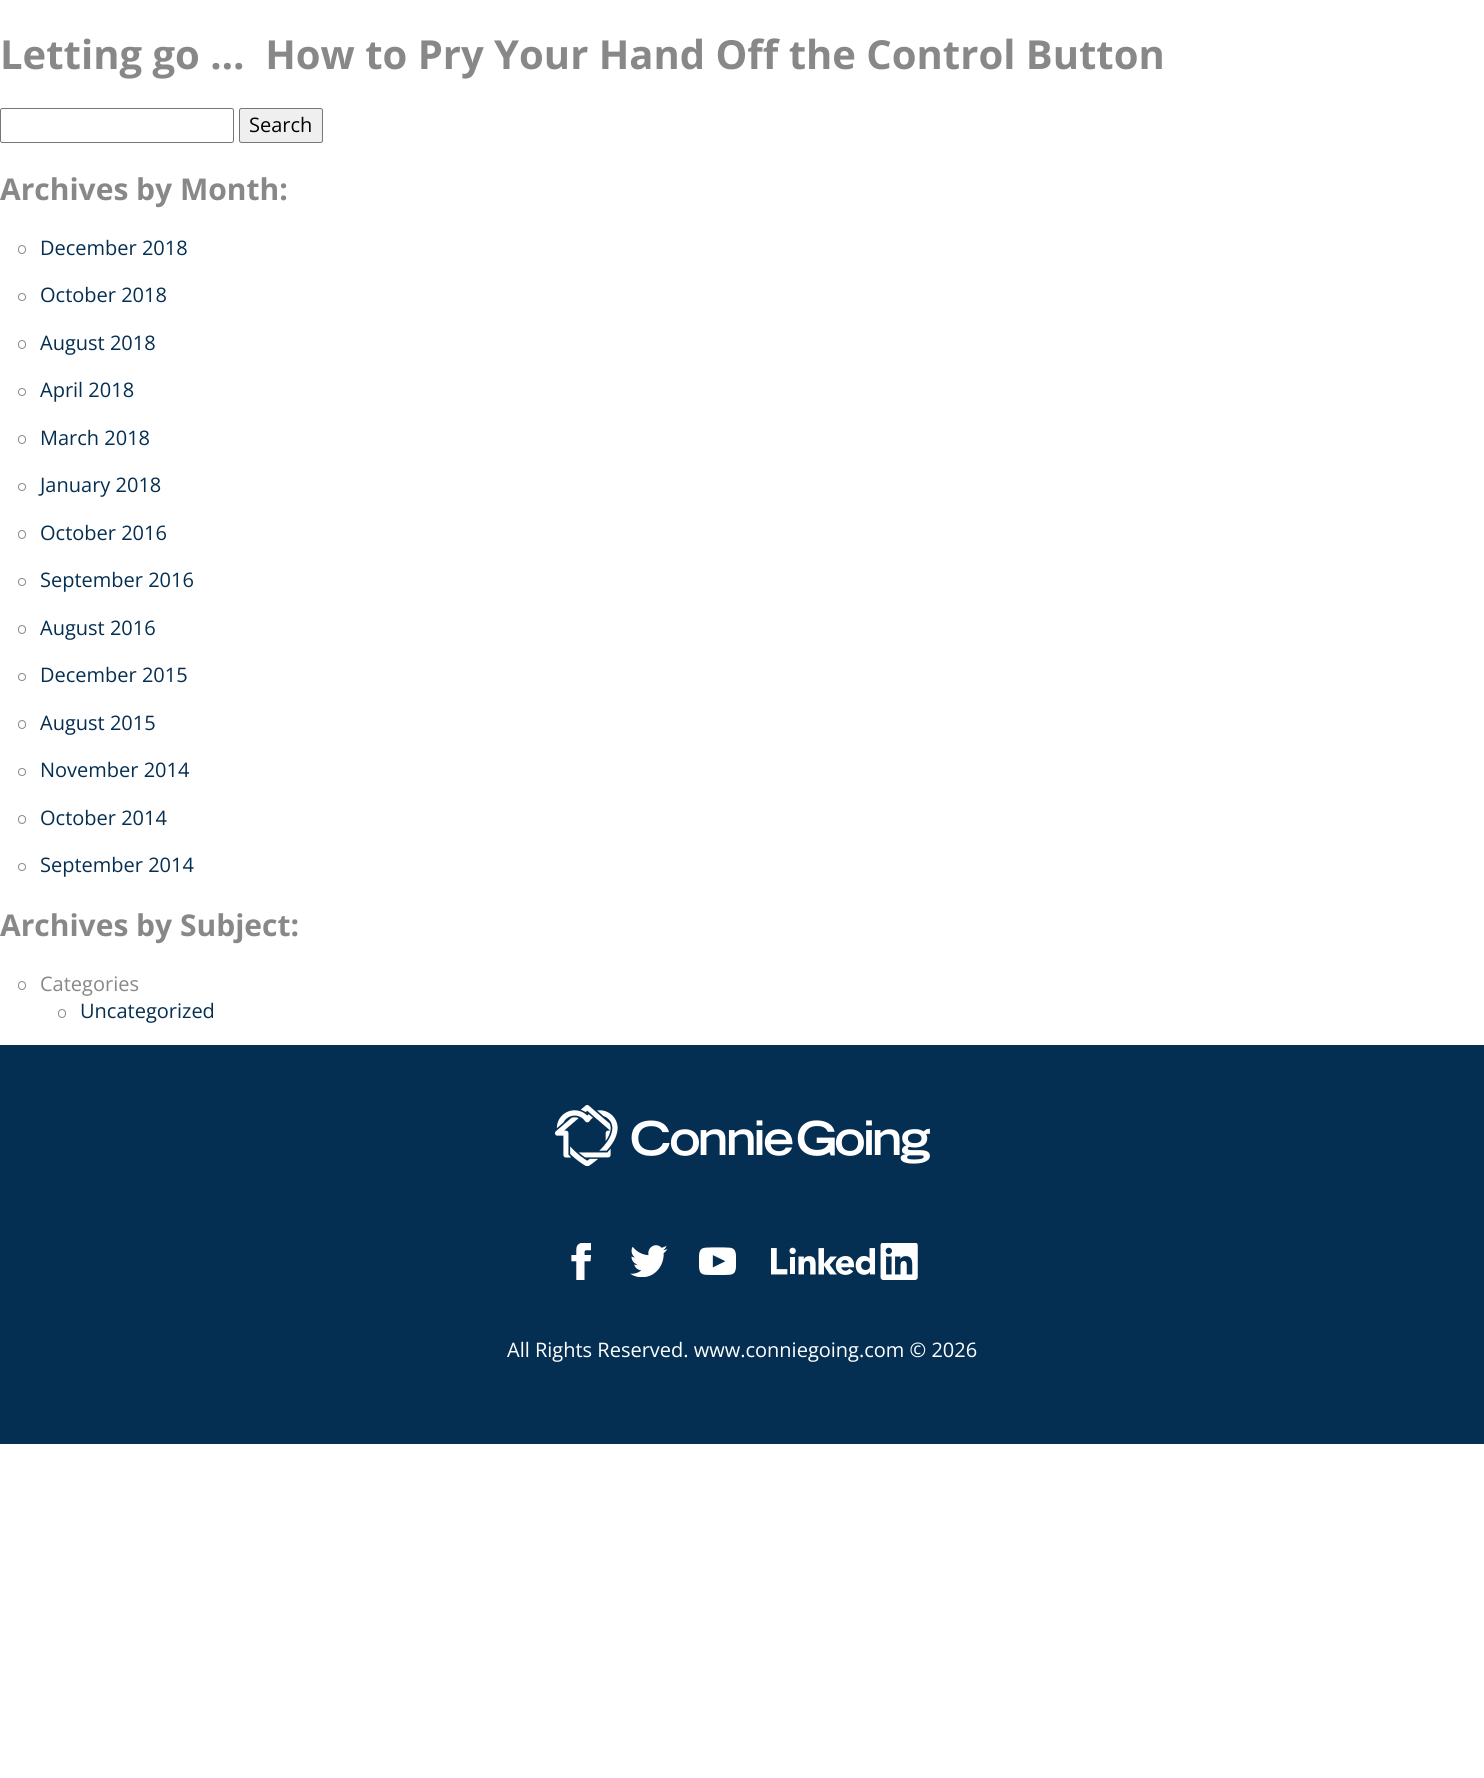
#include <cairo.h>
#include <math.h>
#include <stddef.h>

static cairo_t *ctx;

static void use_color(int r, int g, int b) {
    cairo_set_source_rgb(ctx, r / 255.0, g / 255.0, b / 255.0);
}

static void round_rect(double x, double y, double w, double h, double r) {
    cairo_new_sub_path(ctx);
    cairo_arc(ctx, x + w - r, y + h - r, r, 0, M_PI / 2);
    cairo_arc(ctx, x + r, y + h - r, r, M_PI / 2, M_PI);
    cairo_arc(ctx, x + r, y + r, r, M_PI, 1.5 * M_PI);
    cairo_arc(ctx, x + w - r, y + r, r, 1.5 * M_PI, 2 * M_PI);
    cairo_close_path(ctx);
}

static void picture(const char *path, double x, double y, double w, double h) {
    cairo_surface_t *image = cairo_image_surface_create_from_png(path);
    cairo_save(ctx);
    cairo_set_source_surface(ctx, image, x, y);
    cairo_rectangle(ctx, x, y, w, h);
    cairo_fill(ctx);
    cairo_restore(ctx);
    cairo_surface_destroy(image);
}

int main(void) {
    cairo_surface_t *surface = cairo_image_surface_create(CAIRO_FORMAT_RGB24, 1484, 1778);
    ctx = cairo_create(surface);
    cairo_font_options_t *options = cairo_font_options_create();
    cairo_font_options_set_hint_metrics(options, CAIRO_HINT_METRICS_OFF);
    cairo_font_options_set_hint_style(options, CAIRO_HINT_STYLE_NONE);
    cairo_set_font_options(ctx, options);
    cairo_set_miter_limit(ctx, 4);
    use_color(255, 255, 255);
    cairo_paint(ctx);
    cairo_select_font_face(ctx, "Open Sans", CAIRO_FONT_SLANT_NORMAL, CAIRO_FONT_WEIGHT_BOLD);
    cairo_set_font_size(ctx, 40);
    use_color(136, 136, 136);
    cairo_move_to(ctx, 0, 69);
    cairo_show_text(ctx, "Letting go …  How to Pry Your Hand Off the Control Button");
    round_rect(0.5, 108.5, 233, 34, 2);
    use_color(118, 118, 118);
    cairo_set_line_width(ctx, 1);
    cairo_stroke(ctx);
    use_color(239, 239, 239);
    round_rect(239.5, 108.5, 83, 34, 2);
    cairo_fill_preserve(ctx);
    use_color(118, 118, 118);
    cairo_stroke(ctx);
    cairo_select_font_face(ctx, "Open Sans", CAIRO_FONT_SLANT_NORMAL, CAIRO_FONT_WEIGHT_NORMAL);
    cairo_set_font_size(ctx, 20);
    use_color(0, 0, 0);
    cairo_move_to(ctx, 249, 132);
    cairo_show_text(ctx, "Search");
    cairo_select_font_face(ctx, "Open Sans", CAIRO_FONT_SLANT_NORMAL, CAIRO_FONT_WEIGHT_BOLD);
    cairo_set_font_size(ctx, 30);
    use_color(136, 136, 136);
    cairo_move_to(ctx, 0, 200);
    cairo_show_text(ctx, "Archives by Month:");
    round_rect(18.5, 245.5, 7, 8, 3.5);
    cairo_stroke(ctx);
    cairo_select_font_face(ctx, "Open Sans", CAIRO_FONT_SLANT_NORMAL, CAIRO_FONT_WEIGHT_NORMAL);
    cairo_set_font_size(ctx, 20);
    use_color(5, 47, 82);
    cairo_move_to(ctx, 40, 255);
    cairo_show_text(ctx, "December 2018");
    cairo_new_path(ctx);
    cairo_arc(ctx, 22, 297, 3.5, 0, 2 * M_PI);
    use_color(136, 136, 136);
    cairo_stroke(ctx);
    use_color(5, 47, 82);
    cairo_move_to(ctx, 40, 302);
    cairo_show_text(ctx, "October 2018");
    round_rect(18.5, 340.5, 7, 8, 3.5);
    use_color(136, 136, 136);
    cairo_stroke(ctx);
    use_color(5, 47, 82);
    cairo_move_to(ctx, 40, 350);
    cairo_show_text(ctx, "August 2018");
    cairo_new_path(ctx);
    cairo_arc(ctx, 22, 392, 3.5, 0, 2 * M_PI);
    use_color(136, 136, 136);
    cairo_stroke(ctx);
    use_color(5, 47, 82);
    cairo_move_to(ctx, 40, 397);
    cairo_show_text(ctx, "April 2018");
    round_rect(18.5, 435.5, 7, 8, 3.5);
    use_color(136, 136, 136);
    cairo_stroke(ctx);
    use_color(5, 47, 82);
    cairo_move_to(ctx, 40, 445);
    cairo_show_text(ctx, "March 2018");
    cairo_new_path(ctx);
    cairo_arc(ctx, 22, 487, 3.5, 0, 2 * M_PI);
    use_color(136, 136, 136);
    cairo_stroke(ctx);
    use_color(5, 47, 82);
    cairo_move_to(ctx, 40, 492);
    cairo_show_text(ctx, "January 2018");
    round_rect(18.5, 530.5, 7, 8, 3.5);
    use_color(136, 136, 136);
    cairo_stroke(ctx);
    use_color(5, 47, 82);
    cairo_move_to(ctx, 40, 540);
    cairo_show_text(ctx, "October 2016");
    cairo_new_path(ctx);
    cairo_arc(ctx, 22, 582, 3.5, 0, 2 * M_PI);
    use_color(136, 136, 136);
    cairo_stroke(ctx);
    use_color(5, 47, 82);
    cairo_move_to(ctx, 40, 587);
    cairo_show_text(ctx, "September 2016");
    round_rect(18.5, 625.5, 7, 8, 3.5);
    use_color(136, 136, 136);
    cairo_stroke(ctx);
    use_color(5, 47, 82);
    cairo_move_to(ctx, 40, 635);
    cairo_show_text(ctx, "August 2016");
    cairo_new_path(ctx);
    cairo_arc(ctx, 22, 677, 3.5, 0, 2 * M_PI);
    use_color(136, 136, 136);
    cairo_stroke(ctx);
    use_color(5, 47, 82);
    cairo_move_to(ctx, 40, 682);
    cairo_show_text(ctx, "December 2015");
    round_rect(18.5, 720.5, 7, 8, 3.5);
    use_color(136, 136, 136);
    cairo_stroke(ctx);
    use_color(5, 47, 82);
    cairo_move_to(ctx, 40, 730);
    cairo_show_text(ctx, "August 2015");
    cairo_new_path(ctx);
    cairo_arc(ctx, 22, 772, 3.5, 0, 2 * M_PI);
    use_color(136, 136, 136);
    cairo_stroke(ctx);
    use_color(5, 47, 82);
    cairo_move_to(ctx, 40, 777);
    cairo_show_text(ctx, "November 2014");
    round_rect(18.5, 815.5, 7, 8, 3.5);
    use_color(136, 136, 136);
    cairo_stroke(ctx);
    use_color(5, 47, 82);
    cairo_move_to(ctx, 40, 825);
    cairo_show_text(ctx, "October 2014");
    cairo_new_path(ctx);
    cairo_arc(ctx, 22, 867, 3.5, 0, 2 * M_PI);
    use_color(136, 136, 136);
    cairo_stroke(ctx);
    use_color(5, 47, 82);
    cairo_move_to(ctx, 40, 872);
    cairo_show_text(ctx, "September 2014");
    cairo_select_font_face(ctx, "Open Sans", CAIRO_FONT_SLANT_NORMAL, CAIRO_FONT_WEIGHT_BOLD);
    cairo_set_font_size(ctx, 30);
    use_color(136, 136, 136);
    cairo_move_to(ctx, 0, 936);
    cairo_show_text(ctx, "Archives by Subject:");
    round_rect(18.5, 981.5, 7, 8, 3.5);
    cairo_stroke(ctx);
    cairo_select_font_face(ctx, "Open Sans", CAIRO_FONT_SLANT_NORMAL, CAIRO_FONT_WEIGHT_NORMAL);
    cairo_set_font_size(ctx, 20);
    cairo_move_to(ctx, 40, 991);
    cairo_show_text(ctx, "Categories");
    round_rect(58.5, 1009.5, 7, 8, 3.5);
    cairo_stroke(ctx);
    use_color(5, 47, 82);
    cairo_move_to(ctx, 80, 1018);
    cairo_show_text(ctx, "Uncategorized");
    cairo_rectangle(ctx, 0, 1045, 1484, 399);
    cairo_fill(ctx);
    picture("img1.png", 555, 1105, 375, 61);
    picture("img2.png", 571, 1243, 20, 37);
    picture("img3.png", 630, 1245, 38, 32);
    picture("img4.png", 699, 1247, 37, 28);
    picture("img5.png", 771, 1243, 147, 37);
    use_color(255, 255, 255);
    cairo_move_to(ctx, 507, 1357);
    cairo_show_text(ctx, "All Rights Reserved. www.conniegoing.com © 2026");
    cairo_surface_write_to_png(surface, "result.png");
    cairo_font_options_destroy(options);
    cairo_destroy(ctx);
    cairo_surface_destroy(surface);
    return 0;
}
